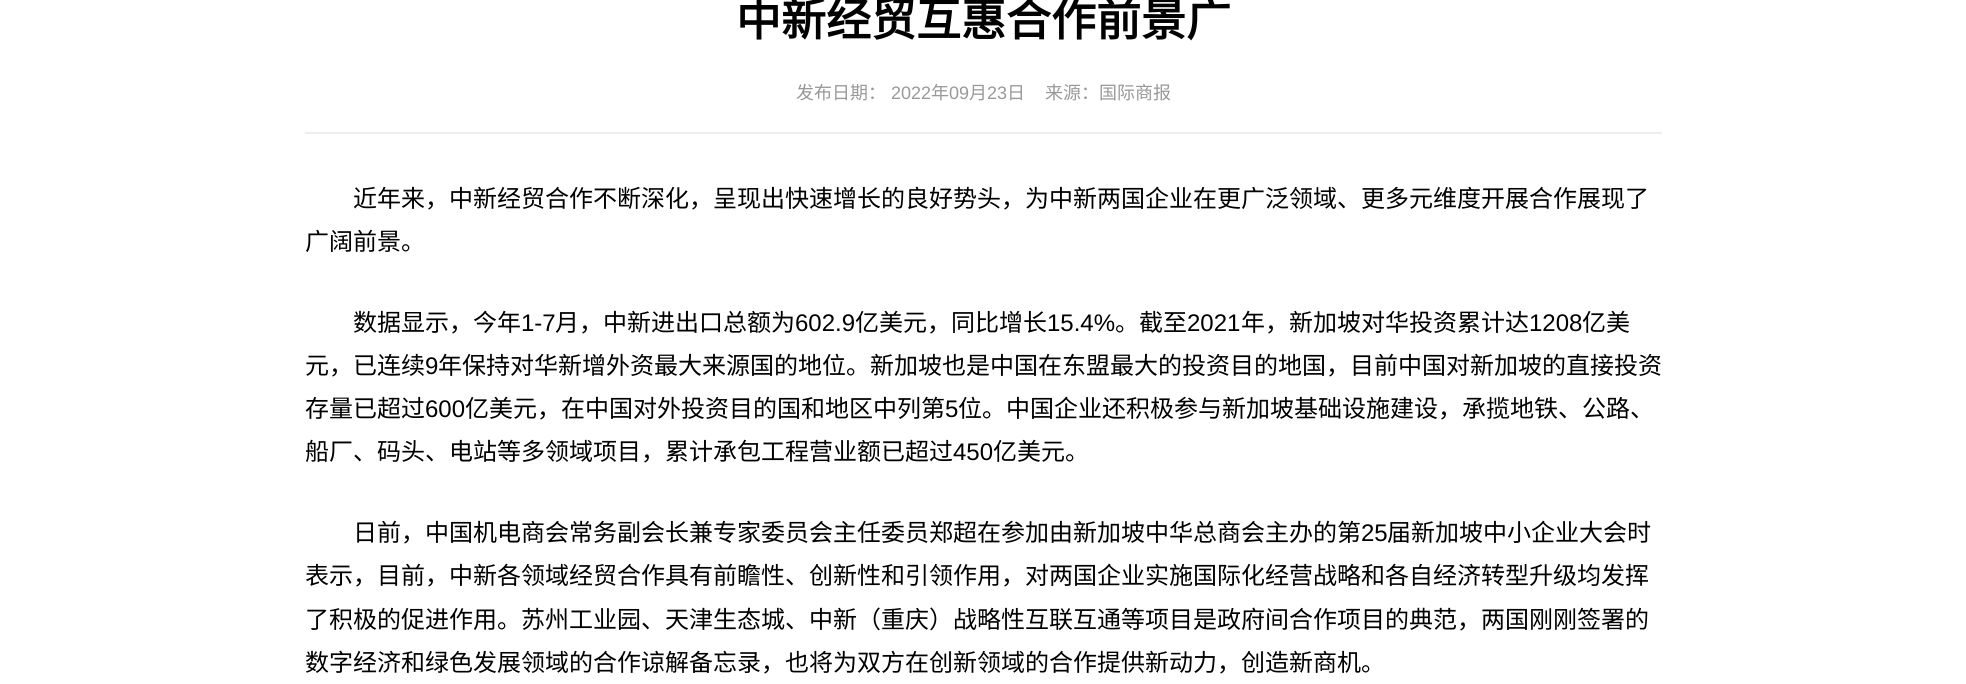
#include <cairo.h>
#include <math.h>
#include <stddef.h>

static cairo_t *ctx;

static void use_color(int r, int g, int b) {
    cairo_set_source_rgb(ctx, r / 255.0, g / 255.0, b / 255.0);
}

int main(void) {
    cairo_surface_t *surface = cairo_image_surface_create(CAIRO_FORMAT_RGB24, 1966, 684);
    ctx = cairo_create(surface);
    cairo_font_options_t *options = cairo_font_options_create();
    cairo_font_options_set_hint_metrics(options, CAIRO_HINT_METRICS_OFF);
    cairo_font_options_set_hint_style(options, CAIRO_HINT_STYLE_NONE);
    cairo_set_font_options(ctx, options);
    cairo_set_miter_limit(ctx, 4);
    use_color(255, 255, 255);
    cairo_paint(ctx);
    cairo_select_font_face(ctx, "Noto Sans CJK SC", CAIRO_FONT_SLANT_NORMAL, CAIRO_FONT_WEIGHT_BOLD);
    cairo_set_font_size(ctx, 45);
    use_color(0, 0, 0);
    cairo_move_to(ctx, 736, 36);
    cairo_show_text(ctx, "中新经贸互惠合作前景广");
    cairo_select_font_face(ctx, "Noto Sans CJK SC", CAIRO_FONT_SLANT_NORMAL, CAIRO_FONT_WEIGHT_NORMAL);
    cairo_set_font_size(ctx, 18);
    use_color(153, 153, 153);
    cairo_move_to(ctx, 796, 99);
    cairo_show_text(ctx, "发布日期：");
    cairo_select_font_face(ctx, "Liberation Sans", CAIRO_FONT_SLANT_NORMAL, CAIRO_FONT_WEIGHT_NORMAL);
    cairo_move_to(ctx, 891, 99);
    cairo_show_text(ctx, "2022");
    cairo_select_font_face(ctx, "Noto Sans CJK SC", CAIRO_FONT_SLANT_NORMAL, CAIRO_FONT_WEIGHT_NORMAL);
    cairo_move_to(ctx, 931, 99);
    cairo_show_text(ctx, "年");
    cairo_select_font_face(ctx, "Liberation Sans", CAIRO_FONT_SLANT_NORMAL, CAIRO_FONT_WEIGHT_NORMAL);
    cairo_move_to(ctx, 949, 99);
    cairo_show_text(ctx, "09");
    cairo_select_font_face(ctx, "Noto Sans CJK SC", CAIRO_FONT_SLANT_NORMAL, CAIRO_FONT_WEIGHT_NORMAL);
    cairo_move_to(ctx, 969, 99);
    cairo_show_text(ctx, "月");
    cairo_select_font_face(ctx, "Liberation Sans", CAIRO_FONT_SLANT_NORMAL, CAIRO_FONT_WEIGHT_NORMAL);
    cairo_move_to(ctx, 987, 99);
    cairo_show_text(ctx, "23");
    cairo_select_font_face(ctx, "Noto Sans CJK SC", CAIRO_FONT_SLANT_NORMAL, CAIRO_FONT_WEIGHT_NORMAL);
    cairo_move_to(ctx, 1007, 99);
    cairo_show_text(ctx, "日");
    cairo_move_to(ctx, 1045, 99);
    cairo_show_text(ctx, "来源：国际商报");
    use_color(238, 238, 238);
    cairo_rectangle(ctx, 305, 132, 1357, 2);
    cairo_fill(ctx);
    cairo_set_font_size(ctx, 24);
    use_color(0, 0, 0);
    cairo_move_to(ctx, 353, 207);
    cairo_show_text(ctx, "近年来，中新经贸合作不断深化，呈现出快速增长的良好势头，为中新两国企业在更广泛领域、更多元维度开展合作展现了");
    cairo_move_to(ctx, 305, 250);
    cairo_show_text(ctx, "广阔前景。");
    cairo_move_to(ctx, 353, 331);
    cairo_show_text(ctx, "数据显示，今年");
    cairo_select_font_face(ctx, "Liberation Sans", CAIRO_FONT_SLANT_NORMAL, CAIRO_FONT_WEIGHT_NORMAL);
    cairo_move_to(ctx, 521, 331);
    cairo_show_text(ctx, "1-7");
    cairo_select_font_face(ctx, "Noto Sans CJK SC", CAIRO_FONT_SLANT_NORMAL, CAIRO_FONT_WEIGHT_NORMAL);
    cairo_move_to(ctx, 555, 331);
    cairo_show_text(ctx, "月，中新进出口总额为");
    cairo_select_font_face(ctx, "Liberation Sans", CAIRO_FONT_SLANT_NORMAL, CAIRO_FONT_WEIGHT_NORMAL);
    cairo_move_to(ctx, 795, 331);
    cairo_show_text(ctx, "602.9");
    cairo_select_font_face(ctx, "Noto Sans CJK SC", CAIRO_FONT_SLANT_NORMAL, CAIRO_FONT_WEIGHT_NORMAL);
    cairo_move_to(ctx, 855, 331);
    cairo_show_text(ctx, "亿美元，同比增长");
    cairo_select_font_face(ctx, "Liberation Sans", CAIRO_FONT_SLANT_NORMAL, CAIRO_FONT_WEIGHT_NORMAL);
    cairo_move_to(ctx, 1047, 331);
    cairo_show_text(ctx, "15.4%");
    cairo_select_font_face(ctx, "Noto Sans CJK SC", CAIRO_FONT_SLANT_NORMAL, CAIRO_FONT_WEIGHT_NORMAL);
    cairo_move_to(ctx, 1115, 331);
    cairo_show_text(ctx, "。截至");
    cairo_select_font_face(ctx, "Liberation Sans", CAIRO_FONT_SLANT_NORMAL, CAIRO_FONT_WEIGHT_NORMAL);
    cairo_move_to(ctx, 1187, 331);
    cairo_show_text(ctx, "2021");
    cairo_select_font_face(ctx, "Noto Sans CJK SC", CAIRO_FONT_SLANT_NORMAL, CAIRO_FONT_WEIGHT_NORMAL);
    cairo_move_to(ctx, 1241, 331);
    cairo_show_text(ctx, "年，新加坡对华投资累计达");
    cairo_select_font_face(ctx, "Liberation Sans", CAIRO_FONT_SLANT_NORMAL, CAIRO_FONT_WEIGHT_NORMAL);
    cairo_move_to(ctx, 1529, 331);
    cairo_show_text(ctx, "1208");
    cairo_select_font_face(ctx, "Noto Sans CJK SC", CAIRO_FONT_SLANT_NORMAL, CAIRO_FONT_WEIGHT_NORMAL);
    cairo_move_to(ctx, 1582, 331);
    cairo_show_text(ctx, "亿美");
    cairo_move_to(ctx, 305, 374);
    cairo_show_text(ctx, "元，已连续");
    cairo_select_font_face(ctx, "Liberation Sans", CAIRO_FONT_SLANT_NORMAL, CAIRO_FONT_WEIGHT_NORMAL);
    cairo_move_to(ctx, 425, 374);
    cairo_show_text(ctx, "9");
    cairo_select_font_face(ctx, "Noto Sans CJK SC", CAIRO_FONT_SLANT_NORMAL, CAIRO_FONT_WEIGHT_NORMAL);
    cairo_move_to(ctx, 438, 374);
    cairo_show_text(ctx, "年保持对华新增外资最大来源国的地位。新加坡也是中国在东盟最大的投资目的地国，目前中国对新加坡的直接投资");
    cairo_move_to(ctx, 305, 417);
    cairo_show_text(ctx, "存量已超过");
    cairo_select_font_face(ctx, "Liberation Sans", CAIRO_FONT_SLANT_NORMAL, CAIRO_FONT_WEIGHT_NORMAL);
    cairo_move_to(ctx, 425, 417);
    cairo_show_text(ctx, "600");
    cairo_select_font_face(ctx, "Noto Sans CJK SC", CAIRO_FONT_SLANT_NORMAL, CAIRO_FONT_WEIGHT_NORMAL);
    cairo_move_to(ctx, 465, 417);
    cairo_show_text(ctx, "亿美元，在中国对外投资目的国和地区中列第");
    cairo_select_font_face(ctx, "Liberation Sans", CAIRO_FONT_SLANT_NORMAL, CAIRO_FONT_WEIGHT_NORMAL);
    cairo_move_to(ctx, 945, 417);
    cairo_show_text(ctx, "5");
    cairo_select_font_face(ctx, "Noto Sans CJK SC", CAIRO_FONT_SLANT_NORMAL, CAIRO_FONT_WEIGHT_NORMAL);
    cairo_move_to(ctx, 958, 417);
    cairo_show_text(ctx, "位。中国企业还积极参与新加坡基础设施建设，承揽地铁、公路、");
    cairo_move_to(ctx, 305, 460);
    cairo_show_text(ctx, "船厂、码头、电站等多领域项目，累计承包工程营业额已超过");
    cairo_select_font_face(ctx, "Liberation Sans", CAIRO_FONT_SLANT_NORMAL, CAIRO_FONT_WEIGHT_NORMAL);
    cairo_move_to(ctx, 953, 460);
    cairo_show_text(ctx, "450");
    cairo_select_font_face(ctx, "Noto Sans CJK SC", CAIRO_FONT_SLANT_NORMAL, CAIRO_FONT_WEIGHT_NORMAL);
    cairo_move_to(ctx, 993, 460);
    cairo_show_text(ctx, "亿美元。");
    cairo_move_to(ctx, 353, 541);
    cairo_show_text(ctx, "日前，中国机电商会常务副会长兼专家委员会主任委员郑超在参加由新加坡中华总商会主办的第");
    cairo_select_font_face(ctx, "Liberation Sans", CAIRO_FONT_SLANT_NORMAL, CAIRO_FONT_WEIGHT_NORMAL);
    cairo_move_to(ctx, 1361, 541);
    cairo_show_text(ctx, "25");
    cairo_select_font_face(ctx, "Noto Sans CJK SC", CAIRO_FONT_SLANT_NORMAL, CAIRO_FONT_WEIGHT_NORMAL);
    cairo_move_to(ctx, 1387, 541);
    cairo_show_text(ctx, "届新加坡中小企业大会时");
    cairo_move_to(ctx, 305, 584);
    cairo_show_text(ctx, "表示，目前，中新各领域经贸合作具有前瞻性、创新性和引领作用，对两国企业实施国际化经营战略和各自经济转型升级均发挥");
    cairo_move_to(ctx, 305, 628);
    cairo_show_text(ctx, "了积极的促进作用。苏州工业园、天津生态城、中新（重庆）战略性互联互通等项目是政府间合作项目的典范，两国刚刚签署的");
    cairo_move_to(ctx, 305, 671);
    cairo_show_text(ctx, "数字经济和绿色发展领域的合作谅解备忘录，也将为双方在创新领域的合作提供新动力，创造新商机。");
    cairo_surface_write_to_png(surface, "result.png");
    cairo_font_options_destroy(options);
    cairo_destroy(ctx);
    cairo_surface_destroy(surface);
    return 0;
}
